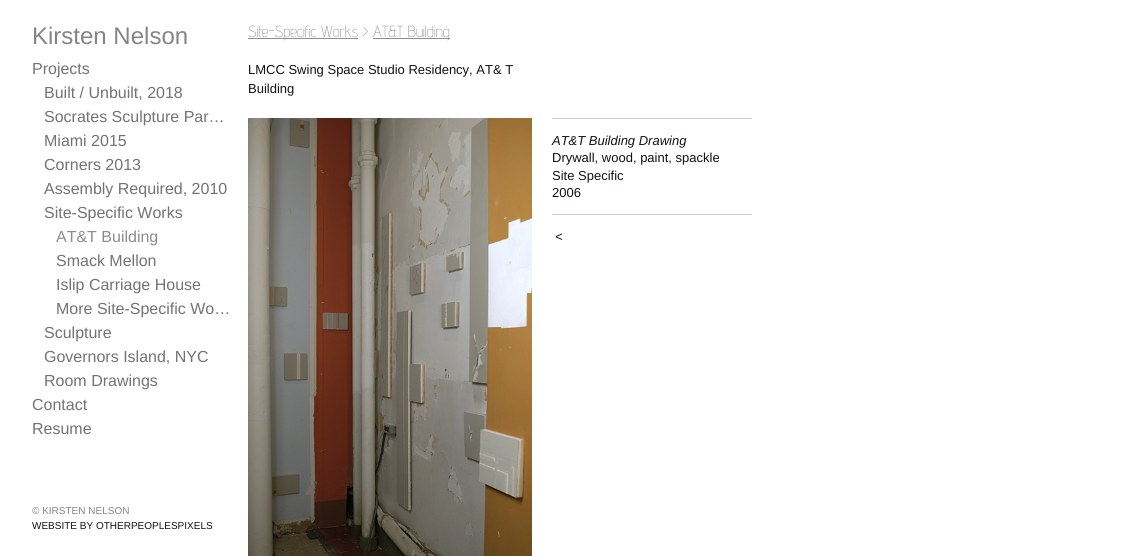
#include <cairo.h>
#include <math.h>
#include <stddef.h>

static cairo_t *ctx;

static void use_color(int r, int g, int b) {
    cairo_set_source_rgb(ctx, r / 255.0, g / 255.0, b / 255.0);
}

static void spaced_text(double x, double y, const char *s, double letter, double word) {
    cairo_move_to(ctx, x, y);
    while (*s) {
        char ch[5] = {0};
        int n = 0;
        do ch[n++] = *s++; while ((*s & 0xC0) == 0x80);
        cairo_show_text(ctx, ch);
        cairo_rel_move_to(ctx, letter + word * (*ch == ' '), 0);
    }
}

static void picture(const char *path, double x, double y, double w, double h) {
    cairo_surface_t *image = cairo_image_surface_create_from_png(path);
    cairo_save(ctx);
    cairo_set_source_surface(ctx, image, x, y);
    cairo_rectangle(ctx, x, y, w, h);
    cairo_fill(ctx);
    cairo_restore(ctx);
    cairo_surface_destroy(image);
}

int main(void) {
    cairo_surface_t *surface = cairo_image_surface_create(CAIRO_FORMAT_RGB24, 1142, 556);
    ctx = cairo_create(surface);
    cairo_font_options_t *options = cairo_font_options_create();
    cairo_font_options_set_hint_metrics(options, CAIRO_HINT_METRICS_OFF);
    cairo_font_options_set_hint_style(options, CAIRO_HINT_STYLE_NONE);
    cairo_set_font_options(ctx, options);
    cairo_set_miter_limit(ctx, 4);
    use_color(255, 255, 255);
    cairo_paint(ctx);
    cairo_select_font_face(ctx, "Liberation Sans", CAIRO_FONT_SLANT_NORMAL, CAIRO_FONT_WEIGHT_NORMAL);
    cairo_set_font_size(ctx, 24);
    use_color(133, 133, 133);
    cairo_move_to(ctx, 32, 44);
    cairo_show_text(ctx, "Kirsten Nelson");
    cairo_set_font_size(ctx, 16);
    use_color(115, 115, 115);
    cairo_move_to(ctx, 32, 74);
    cairo_show_text(ctx, "Projects");
    cairo_move_to(ctx, 44, 98);
    cairo_show_text(ctx, "Built / Unbuilt, 2018");
    cairo_move_to(ctx, 44, 122);
    cairo_show_text(ctx, "Socrates Sculpture Par…");
    cairo_move_to(ctx, 44, 146);
    cairo_show_text(ctx, "Miami 2015");
    cairo_move_to(ctx, 44, 170);
    cairo_show_text(ctx, "Corners 2013");
    cairo_move_to(ctx, 44, 194);
    cairo_show_text(ctx, "Assembly Required, 2010");
    cairo_move_to(ctx, 44, 218);
    cairo_show_text(ctx, "Site-Specific Works");
    use_color(140, 140, 140);
    cairo_move_to(ctx, 56, 242);
    cairo_show_text(ctx, "AT&T Building");
    use_color(115, 115, 115);
    cairo_move_to(ctx, 56, 266);
    cairo_show_text(ctx, "Smack Mellon");
    cairo_move_to(ctx, 56, 290);
    cairo_show_text(ctx, "Islip Carriage House");
    cairo_move_to(ctx, 56, 314);
    cairo_show_text(ctx, "More Site-Specific Wo…");
    cairo_move_to(ctx, 44, 338);
    cairo_show_text(ctx, "Sculpture");
    cairo_move_to(ctx, 44, 362);
    cairo_show_text(ctx, "Governors Island, NYC");
    cairo_move_to(ctx, 44, 386);
    cairo_show_text(ctx, "Room Drawings");
    cairo_move_to(ctx, 32, 410);
    cairo_show_text(ctx, "Contact");
    cairo_move_to(ctx, 32, 434);
    cairo_show_text(ctx, "Resume");
    cairo_set_font_size(ctx, 10);
    use_color(133, 133, 133);
    cairo_move_to(ctx, 32, 514);
    cairo_show_text(ctx, "© KIRSTEN NELSON");
    use_color(16, 19, 19);
    cairo_move_to(ctx, 32, 529);
    cairo_show_text(ctx, "WEBSITE BY OTHERPEOPLESPIXELS");
    use_color(140, 140, 140);
    cairo_rectangle(ctx, 248, 38, 110, 1);
    cairo_fill(ctx);
    cairo_select_font_face(ctx, "Advent Pro ExtraLight", CAIRO_FONT_SLANT_NORMAL, CAIRO_FONT_WEIGHT_NORMAL);
    cairo_set_font_size(ctx, 16);
    cairo_move_to(ctx, 248, 37);
    cairo_show_text(ctx, "Site-Specific Works >");
    cairo_rectangle(ctx, 373, 38, 77, 1);
    cairo_fill(ctx);
    cairo_move_to(ctx, 373, 37);
    cairo_show_text(ctx, "AT&T Building");
    cairo_select_font_face(ctx, "Liberation Sans", CAIRO_FONT_SLANT_NORMAL, CAIRO_FONT_WEIGHT_NORMAL);
    cairo_set_font_size(ctx, 13);
    use_color(16, 19, 19);
    cairo_move_to(ctx, 248, 74);
    cairo_show_text(ctx, "LMCC Swing Space Studio Residency, AT& T");
    cairo_move_to(ctx, 248, 93);
    cairo_show_text(ctx, "Building");
    picture("img1.png", 248, 118, 284, 438);
    use_color(208, 208, 207);
    cairo_rectangle(ctx, 552, 118, 200, 1);
    cairo_fill(ctx);
    cairo_select_font_face(ctx, "Liberation Sans", CAIRO_FONT_SLANT_ITALIC, CAIRO_FONT_WEIGHT_NORMAL);
    use_color(16, 19, 19);
    cairo_move_to(ctx, 552, 145);
    cairo_show_text(ctx, "AT&T Building Drawing");
    cairo_select_font_face(ctx, "Liberation Sans", CAIRO_FONT_SLANT_NORMAL, CAIRO_FONT_WEIGHT_NORMAL);
    cairo_move_to(ctx, 552, 162);
    cairo_show_text(ctx, "Drywall, wood, paint, spackle");
    cairo_move_to(ctx, 552, 180);
    cairo_show_text(ctx, "Site Specific");
    cairo_move_to(ctx, 552, 197);
    cairo_show_text(ctx, "2006");
    use_color(208, 208, 207);
    cairo_rectangle(ctx, 552, 214, 200, 1);
    cairo_fill(ctx);
    cairo_select_font_face(ctx, "Liberation Sans", CAIRO_FONT_SLANT_ITALIC, CAIRO_FONT_WEIGHT_NORMAL);
    use_color(16, 19, 19);
    spaced_text(555, 241, "<", 1, 0);
    cairo_surface_write_to_png(surface, "result.png");
    cairo_font_options_destroy(options);
    cairo_destroy(ctx);
    cairo_surface_destroy(surface);
    return 0;
}
